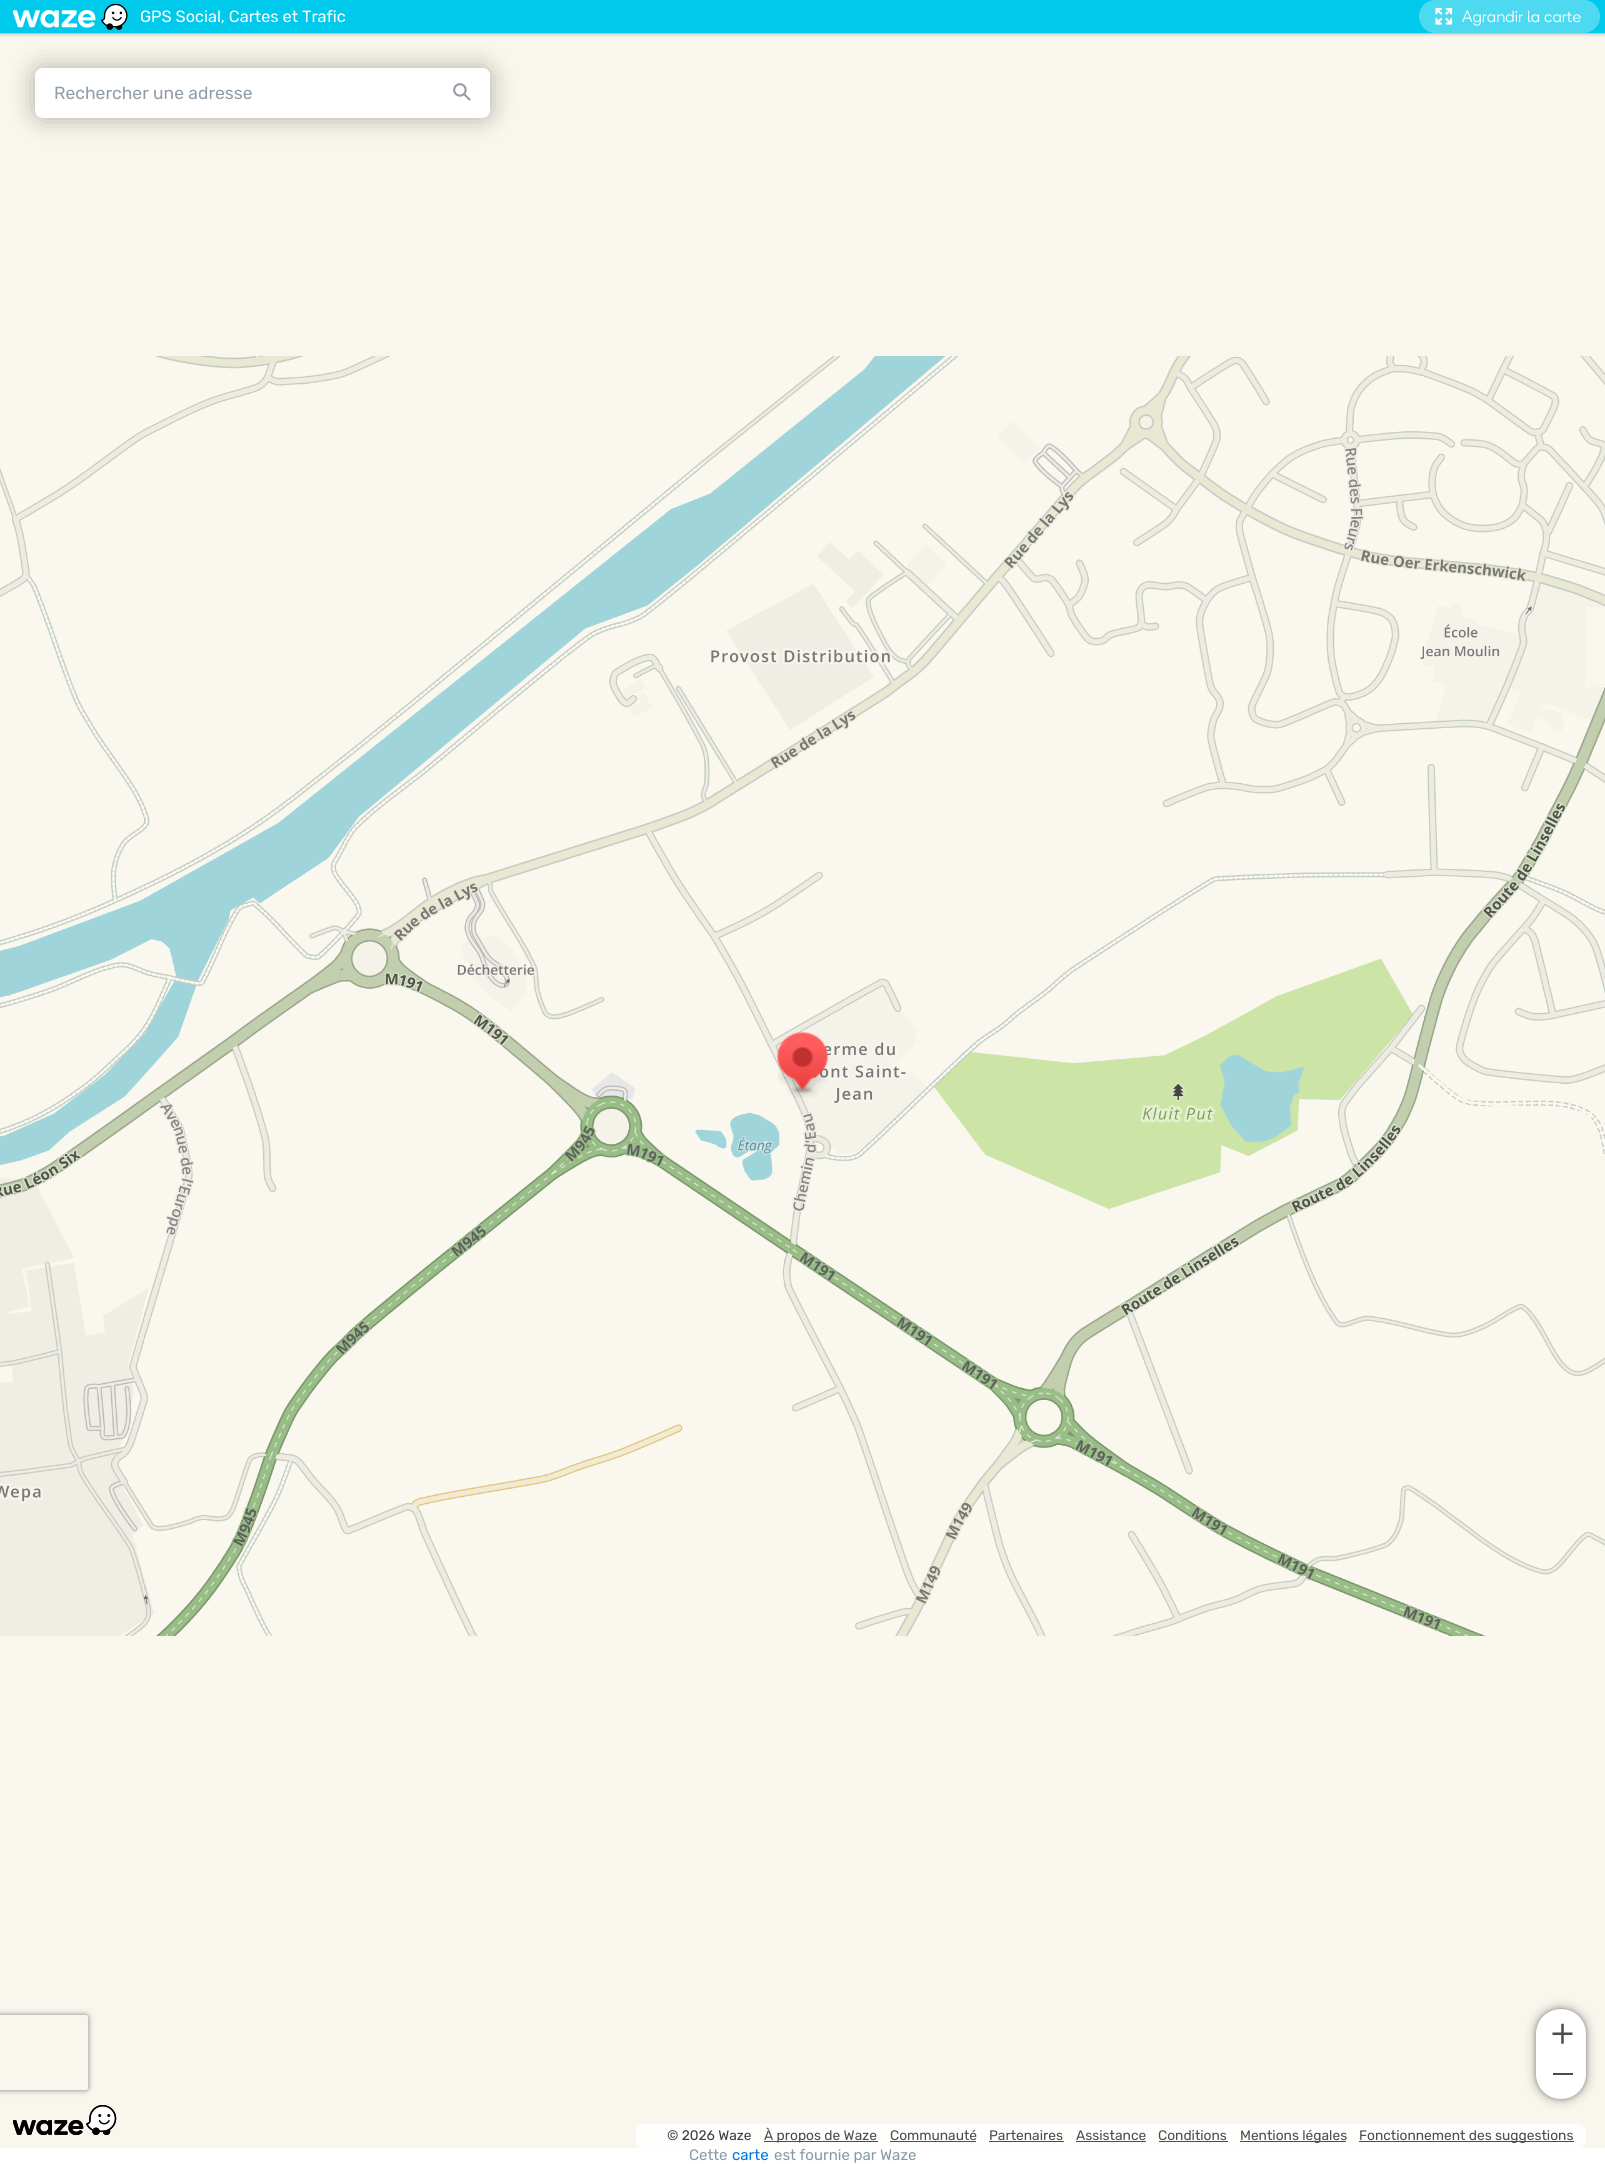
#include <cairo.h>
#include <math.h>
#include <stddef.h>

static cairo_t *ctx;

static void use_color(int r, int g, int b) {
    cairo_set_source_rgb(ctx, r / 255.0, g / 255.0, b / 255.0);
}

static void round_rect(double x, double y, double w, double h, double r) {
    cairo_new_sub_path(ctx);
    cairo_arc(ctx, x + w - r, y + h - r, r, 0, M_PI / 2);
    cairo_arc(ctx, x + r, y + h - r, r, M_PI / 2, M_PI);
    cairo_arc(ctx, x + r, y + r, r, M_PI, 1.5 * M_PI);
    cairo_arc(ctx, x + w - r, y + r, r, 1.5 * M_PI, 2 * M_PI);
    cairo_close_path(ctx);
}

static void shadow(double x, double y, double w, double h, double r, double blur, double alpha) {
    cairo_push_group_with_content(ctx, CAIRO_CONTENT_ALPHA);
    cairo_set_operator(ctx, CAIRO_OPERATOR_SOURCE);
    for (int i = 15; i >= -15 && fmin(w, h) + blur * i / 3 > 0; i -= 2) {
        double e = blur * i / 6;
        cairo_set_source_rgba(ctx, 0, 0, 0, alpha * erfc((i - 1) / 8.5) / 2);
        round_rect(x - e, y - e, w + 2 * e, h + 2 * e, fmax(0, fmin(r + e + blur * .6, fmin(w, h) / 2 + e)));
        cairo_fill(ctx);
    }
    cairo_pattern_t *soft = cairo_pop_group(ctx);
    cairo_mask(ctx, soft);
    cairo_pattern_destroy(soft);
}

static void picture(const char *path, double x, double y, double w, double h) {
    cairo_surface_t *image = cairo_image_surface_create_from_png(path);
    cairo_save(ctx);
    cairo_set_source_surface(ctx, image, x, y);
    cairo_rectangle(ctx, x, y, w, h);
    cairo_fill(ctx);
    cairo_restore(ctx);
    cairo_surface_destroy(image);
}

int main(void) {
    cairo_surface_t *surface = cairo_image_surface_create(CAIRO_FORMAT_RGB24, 1605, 2164);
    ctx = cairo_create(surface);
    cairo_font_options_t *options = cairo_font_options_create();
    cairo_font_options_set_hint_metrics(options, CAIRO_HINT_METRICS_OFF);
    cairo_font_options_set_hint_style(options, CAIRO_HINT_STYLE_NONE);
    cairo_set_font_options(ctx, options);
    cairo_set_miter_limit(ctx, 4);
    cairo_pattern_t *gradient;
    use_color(255, 255, 255);
    cairo_paint(ctx);
    use_color(249, 246, 237);
    cairo_rectangle(ctx, 0, 33, 1605, 2115);
    cairo_fill(ctx);
    use_color(0, 0, 0);
    shadow(0, 0, 1605, 33, 0, 2, 0.5);
    shadow(35, 68, 455, 50, 8, 12.5, 0.3);
    use_color(0, 202, 235);
    cairo_rectangle(ctx, 0, 0, 1605, 33);
    cairo_fill(ctx);
    picture("img1.png", 13, 4, 115, 26);
    cairo_select_font_face(ctx, "Rubik", CAIRO_FONT_SLANT_NORMAL, CAIRO_FONT_WEIGHT_NORMAL);
    cairo_set_font_size(ctx, 16.25);
    use_color(255, 255, 255);
    cairo_move_to(ctx, 140, 22);
    cairo_show_text(ctx, "GPS Social, Cartes et Trafic");
    use_color(77, 218, 241);
    round_rect(1419, 0, 181, 33, 16.5);
    cairo_fill(ctx);
    picture("img2.png", 1435, 7, 18, 18);
    cairo_select_font_face(ctx, "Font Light", CAIRO_FONT_SLANT_NORMAL, CAIRO_FONT_WEIGHT_NORMAL);
    use_color(255, 255, 255);
    cairo_move_to(ctx, 1462, 22);
    cairo_show_text(ctx, "Agrandir la carte");
    cairo_save(ctx);
    cairo_set_fill_rule(ctx, CAIRO_FILL_RULE_EVEN_ODD);
    cairo_new_path(ctx);
    cairo_move_to(ctx, 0, 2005);
    cairo_line_to(ctx, 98, 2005);
    cairo_line_to(ctx, 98, 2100);
    cairo_line_to(ctx, 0, 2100);
    cairo_close_path(ctx);
    cairo_move_to(ctx, -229.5, 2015);
    cairo_line_to(ctx, 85.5, 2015);
    cairo_curve_to(ctx, 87, 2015, 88, 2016, 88, 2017.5);
    cairo_line_to(ctx, 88, 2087.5);
    cairo_curve_to(ctx, 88, 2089, 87, 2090, 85.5, 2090);
    cairo_line_to(ctx, -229.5, 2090);
    cairo_curve_to(ctx, -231, 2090, -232, 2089, -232, 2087.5);
    cairo_line_to(ctx, -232, 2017.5);
    cairo_curve_to(ctx, -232, 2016, -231, 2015, -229.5, 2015);
    cairo_close_path(ctx);
    cairo_clip(ctx);
    use_color(128, 128, 128);
    shadow(-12, 2015, 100, 75, 2.5, 3, 1);
    cairo_restore(ctx);
    round_rect(35, 68, 455, 50, 8);
    cairo_fill(ctx);
    cairo_select_font_face(ctx, "Rubik", CAIRO_FONT_SLANT_NORMAL, CAIRO_FONT_WEIGHT_NORMAL);
    cairo_set_font_size(ctx, 17.5);
    use_color(145, 157, 169);
    cairo_move_to(ctx, 54, 99);
    cairo_show_text(ctx, "Rechercher une adresse");
    gradient = cairo_pattern_create_linear(428, 91, 490, 91);
    cairo_pattern_add_color_stop_rgba(gradient, 0, 1, 1, 1, 0);
    cairo_pattern_add_color_stop_rgba(gradient, 0.25, 1, 1, 1, 1);
    cairo_pattern_add_color_stop_rgba(gradient, 1, 1, 1, 1, 1);
    cairo_set_source(ctx, gradient);
    cairo_pattern_destroy(gradient);
    round_rect(428, 68, 62, 47, 8);
    cairo_fill(ctx);
    picture("img3.png", 453, 83, 18, 18);
    picture("img4.png", 13, 2105, 104, 30);
    use_color(0, 0, 0);
    shadow(1536, 2009, 50, 90, 25, 6, 0.3);
    shadow(1536, 2009, 50, 90, 25, 2.5, 0.3);
    use_color(255, 255, 255);
    cairo_new_path(ctx);
    cairo_move_to(ctx, 1561, 2009);
    cairo_curve_to(ctx, 1575, 2009, 1586, 2020, 1586, 2034);
    cairo_line_to(ctx, 1586, 2054);
    cairo_line_to(ctx, 1536, 2054);
    cairo_line_to(ctx, 1536, 2034);
    cairo_curve_to(ctx, 1536, 2020, 1547, 2009, 1561, 2009);
    cairo_close_path(ctx);
    cairo_fill(ctx);
    picture("img5.png", 1552, 2023, 21, 21);
    cairo_new_path(ctx);
    cairo_move_to(ctx, 1536, 2054);
    cairo_line_to(ctx, 1586, 2054);
    cairo_line_to(ctx, 1586, 2074);
    cairo_curve_to(ctx, 1586, 2088, 1575, 2099, 1561, 2099);
    cairo_curve_to(ctx, 1547, 2099, 1536, 2088, 1536, 2074);
    cairo_close_path(ctx);
    cairo_fill(ctx);
    use_color(76, 76, 76);
    cairo_rectangle(ctx, 1553, 2073, 20, 2);
    cairo_fill(ctx);
    use_color(254, 254, 253);
    round_rect(636, 2124, 950, 24, 8);
    cairo_fill(ctx);
    cairo_set_font_size(ctx, 13.75);
    use_color(61, 61, 61);
    cairo_move_to(ctx, 667, 2140);
    cairo_show_text(ctx, "© 2026 Waze");
    use_color(76, 76, 76);
    cairo_rectangle(ctx, 764, 2141, 114, 1);
    cairo_fill(ctx);
    cairo_move_to(ctx, 764, 2140);
    cairo_show_text(ctx, "À propos de Waze");
    cairo_move_to(ctx, 890, 2140);
    cairo_show_text(ctx, "Communauté");
    cairo_rectangle(ctx, 890, 2141, 86, 1);
    cairo_fill(ctx);
    cairo_move_to(ctx, 989, 2140);
    cairo_show_text(ctx, "Partenaires");
    cairo_rectangle(ctx, 989, 2141, 75, 1);
    cairo_fill(ctx);
    cairo_move_to(ctx, 1076, 2140);
    cairo_show_text(ctx, "Assistance");
    cairo_rectangle(ctx, 1076, 2141, 70, 1);
    cairo_fill(ctx);
    cairo_move_to(ctx, 1158, 2140);
    cairo_show_text(ctx, "Conditions");
    cairo_rectangle(ctx, 1159, 2141, 69, 1);
    cairo_fill(ctx);
    cairo_rectangle(ctx, 1240, 2141, 106, 1);
    cairo_fill(ctx);
    cairo_move_to(ctx, 1240, 2140);
    cairo_show_text(ctx, "Mentions légales");
    cairo_rectangle(ctx, 1359, 2141, 215, 1);
    cairo_fill(ctx);
    cairo_move_to(ctx, 1359, 2140);
    cairo_show_text(ctx, "Fonctionnement des suggestions");
    picture("img6.png", 0, 356, 305, 320);
    picture("img7.png", 305, 356, 320, 320);
    picture("img8.png", 625, 356, 320, 320);
    picture("img9.png", 945, 356, 320, 320);
    picture("img10.png", 1265, 356, 320, 320);
    picture("img11.png", 1585, 356, 20, 251);
    picture("img12.png", 0, 676, 305, 320);
    picture("img13.png", 305, 676, 320, 320);
    picture("img14.png", 625, 676, 291, 320);
    picture("img15.png", 1036, 676, 229, 320);
    picture("img16.png", 1265, 676, 320, 320);
    picture("img17.png", 1585, 687, 20, 306);
    picture("img18.png", 0, 996, 305, 320);
    picture("img19.png", 305, 996, 320, 320);
    picture("img20.png", 625, 996, 320, 320);
    picture("img21.png", 945, 996, 320, 320);
    picture("img22.png", 1265, 996, 320, 320);
    picture("img23.png", 1585, 1000, 20, 157);
    picture("img24.png", 0, 1316, 305, 320);
    picture("img25.png", 305, 1316, 320, 320);
    picture("img26.png", 625, 1316, 320, 320);
    picture("img27.png", 945, 1316, 320, 320);
    picture("img28.png", 1265, 1316, 320, 320);
    picture("img29.png", 1585, 1357, 20, 189);
    picture("img30.png", 777, 1032, 52, 66);
    cairo_set_font_size(ctx, 15);
    use_color(133, 155, 166);
    cairo_move_to(ctx, 689, 2160);
    cairo_show_text(ctx, "Cette");
    use_color(0, 117, 227);
    cairo_move_to(ctx, 732, 2160);
    cairo_show_text(ctx, "carte");
    use_color(133, 155, 166);
    cairo_move_to(ctx, 774, 2160);
    cairo_show_text(ctx, "est fournie par Waze");
    cairo_surface_write_to_png(surface, "result.png");
    cairo_font_options_destroy(options);
    cairo_destroy(ctx);
    cairo_surface_destroy(surface);
    return 0;
}
